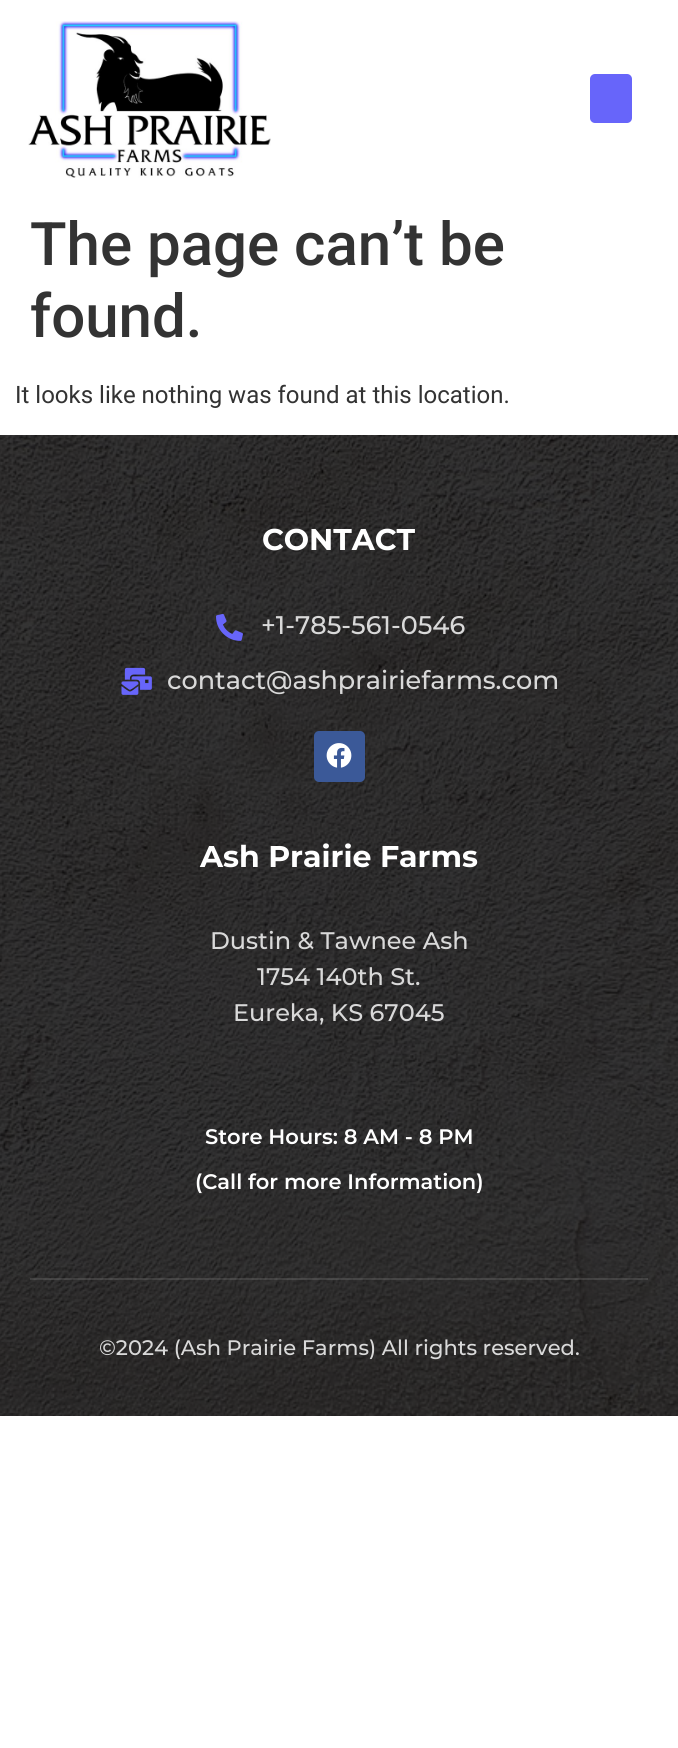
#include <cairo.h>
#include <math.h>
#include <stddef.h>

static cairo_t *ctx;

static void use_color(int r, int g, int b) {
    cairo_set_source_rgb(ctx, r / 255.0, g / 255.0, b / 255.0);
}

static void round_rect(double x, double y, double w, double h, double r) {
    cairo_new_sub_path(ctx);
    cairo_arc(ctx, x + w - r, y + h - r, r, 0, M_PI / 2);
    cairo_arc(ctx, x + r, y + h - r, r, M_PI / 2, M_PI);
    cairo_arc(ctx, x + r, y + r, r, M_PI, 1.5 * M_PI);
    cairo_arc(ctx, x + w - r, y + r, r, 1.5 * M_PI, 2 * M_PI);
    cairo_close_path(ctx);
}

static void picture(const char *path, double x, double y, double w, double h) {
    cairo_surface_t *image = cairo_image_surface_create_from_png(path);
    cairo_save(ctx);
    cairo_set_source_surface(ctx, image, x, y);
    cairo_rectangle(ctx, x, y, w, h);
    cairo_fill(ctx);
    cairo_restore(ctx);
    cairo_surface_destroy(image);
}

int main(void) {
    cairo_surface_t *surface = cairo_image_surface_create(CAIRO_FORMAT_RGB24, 678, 1748);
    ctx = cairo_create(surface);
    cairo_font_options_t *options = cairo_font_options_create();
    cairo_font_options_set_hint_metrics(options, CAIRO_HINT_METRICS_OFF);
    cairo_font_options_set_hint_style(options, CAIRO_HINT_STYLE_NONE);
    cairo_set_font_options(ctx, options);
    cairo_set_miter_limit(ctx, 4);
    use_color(255, 255, 255);
    cairo_paint(ctx);
    picture("img1.png", 28, 21, 243, 157);
    use_color(103, 101, 250);
    round_rect(590, 74, 42, 49, 5);
    cairo_fill(ctx);
    cairo_select_font_face(ctx, "Roboto Medium", CAIRO_FONT_SLANT_NORMAL, CAIRO_FONT_WEIGHT_NORMAL);
    cairo_set_font_size(ctx, 60);
    use_color(51, 51, 51);
    cairo_move_to(ctx, 30, 265);
    cairo_show_text(ctx, "The page can’t be");
    cairo_move_to(ctx, 30, 337);
    cairo_show_text(ctx, "found.");
    cairo_select_font_face(ctx, "Roboto", CAIRO_FONT_SLANT_NORMAL, CAIRO_FONT_WEIGHT_NORMAL);
    cairo_set_font_size(ctx, 24);
    cairo_move_to(ctx, 15, 403);
    cairo_show_text(ctx, "It looks like nothing was found at this location.");
    picture("img2.png", 0, 435, 678, 981);
    cairo_select_font_face(ctx, "Montserrat", CAIRO_FONT_SLANT_NORMAL, CAIRO_FONT_WEIGHT_BOLD);
    cairo_set_font_size(ctx, 30);
    use_color(255, 255, 255);
    cairo_move_to(ctx, 262, 550);
    cairo_show_text(ctx, "CONTACT");
    picture("img3.png", 216, 613, 27, 28);
    cairo_select_font_face(ctx, "Montserrat Medium", CAIRO_FONT_SLANT_NORMAL, CAIRO_FONT_WEIGHT_NORMAL);
    cairo_set_font_size(ctx, 25.5);
    use_color(217, 217, 217);
    cairo_move_to(ctx, 261, 634);
    cairo_show_text(ctx, "+1-785-561-0546");
    picture("img4.png", 121, 667, 31, 28);
    cairo_move_to(ctx, 167, 689);
    cairo_show_text(ctx, "contact@ashprairiefarms.com");
    use_color(59, 89, 152);
    round_rect(314, 731, 51, 51, 5);
    cairo_fill(ctx);
    picture("img5.png", 326, 743, 26, 25);
    cairo_select_font_face(ctx, "Montserrat", CAIRO_FONT_SLANT_NORMAL, CAIRO_FONT_WEIGHT_BOLD);
    cairo_set_font_size(ctx, 30);
    use_color(255, 255, 255);
    cairo_move_to(ctx, 200, 867);
    cairo_show_text(ctx, "Ash Prairie Farms");
    cairo_select_font_face(ctx, "Montserrat Medium", CAIRO_FONT_SLANT_NORMAL, CAIRO_FONT_WEIGHT_NORMAL);
    cairo_set_font_size(ctx, 24);
    use_color(217, 217, 217);
    cairo_move_to(ctx, 210, 949);
    cairo_show_text(ctx, "Dustin & Tawnee Ash");
    cairo_move_to(ctx, 257, 985);
    cairo_show_text(ctx, "1754 140th St.");
    cairo_move_to(ctx, 233, 1021);
    cairo_show_text(ctx, "Eureka, KS 67045");
    cairo_select_font_face(ctx, "Montserrat SemiBold", CAIRO_FONT_SLANT_NORMAL, CAIRO_FONT_WEIGHT_NORMAL);
    cairo_set_font_size(ctx, 21);
    use_color(255, 255, 255);
    cairo_move_to(ctx, 205, 1144);
    cairo_show_text(ctx, "Store Hours: 8 AM - 8 PM");
    cairo_move_to(ctx, 195, 1189);
    cairo_show_text(ctx, "(Call for more Information)");
    cairo_set_source_rgba(ctx, 1, 1, 1, 0.12);
    cairo_rectangle(ctx, 30, 1278, 618, 2);
    cairo_fill(ctx);
    cairo_select_font_face(ctx, "Montserrat Medium", CAIRO_FONT_SLANT_NORMAL, CAIRO_FONT_WEIGHT_NORMAL);
    use_color(217, 217, 217);
    cairo_move_to(ctx, 99, 1355);
    cairo_show_text(ctx, "©2024 (Ash Prairie Farms) All rights reserved.");
    cairo_surface_write_to_png(surface, "result.png");
    cairo_font_options_destroy(options);
    cairo_destroy(ctx);
    cairo_surface_destroy(surface);
    return 0;
}
